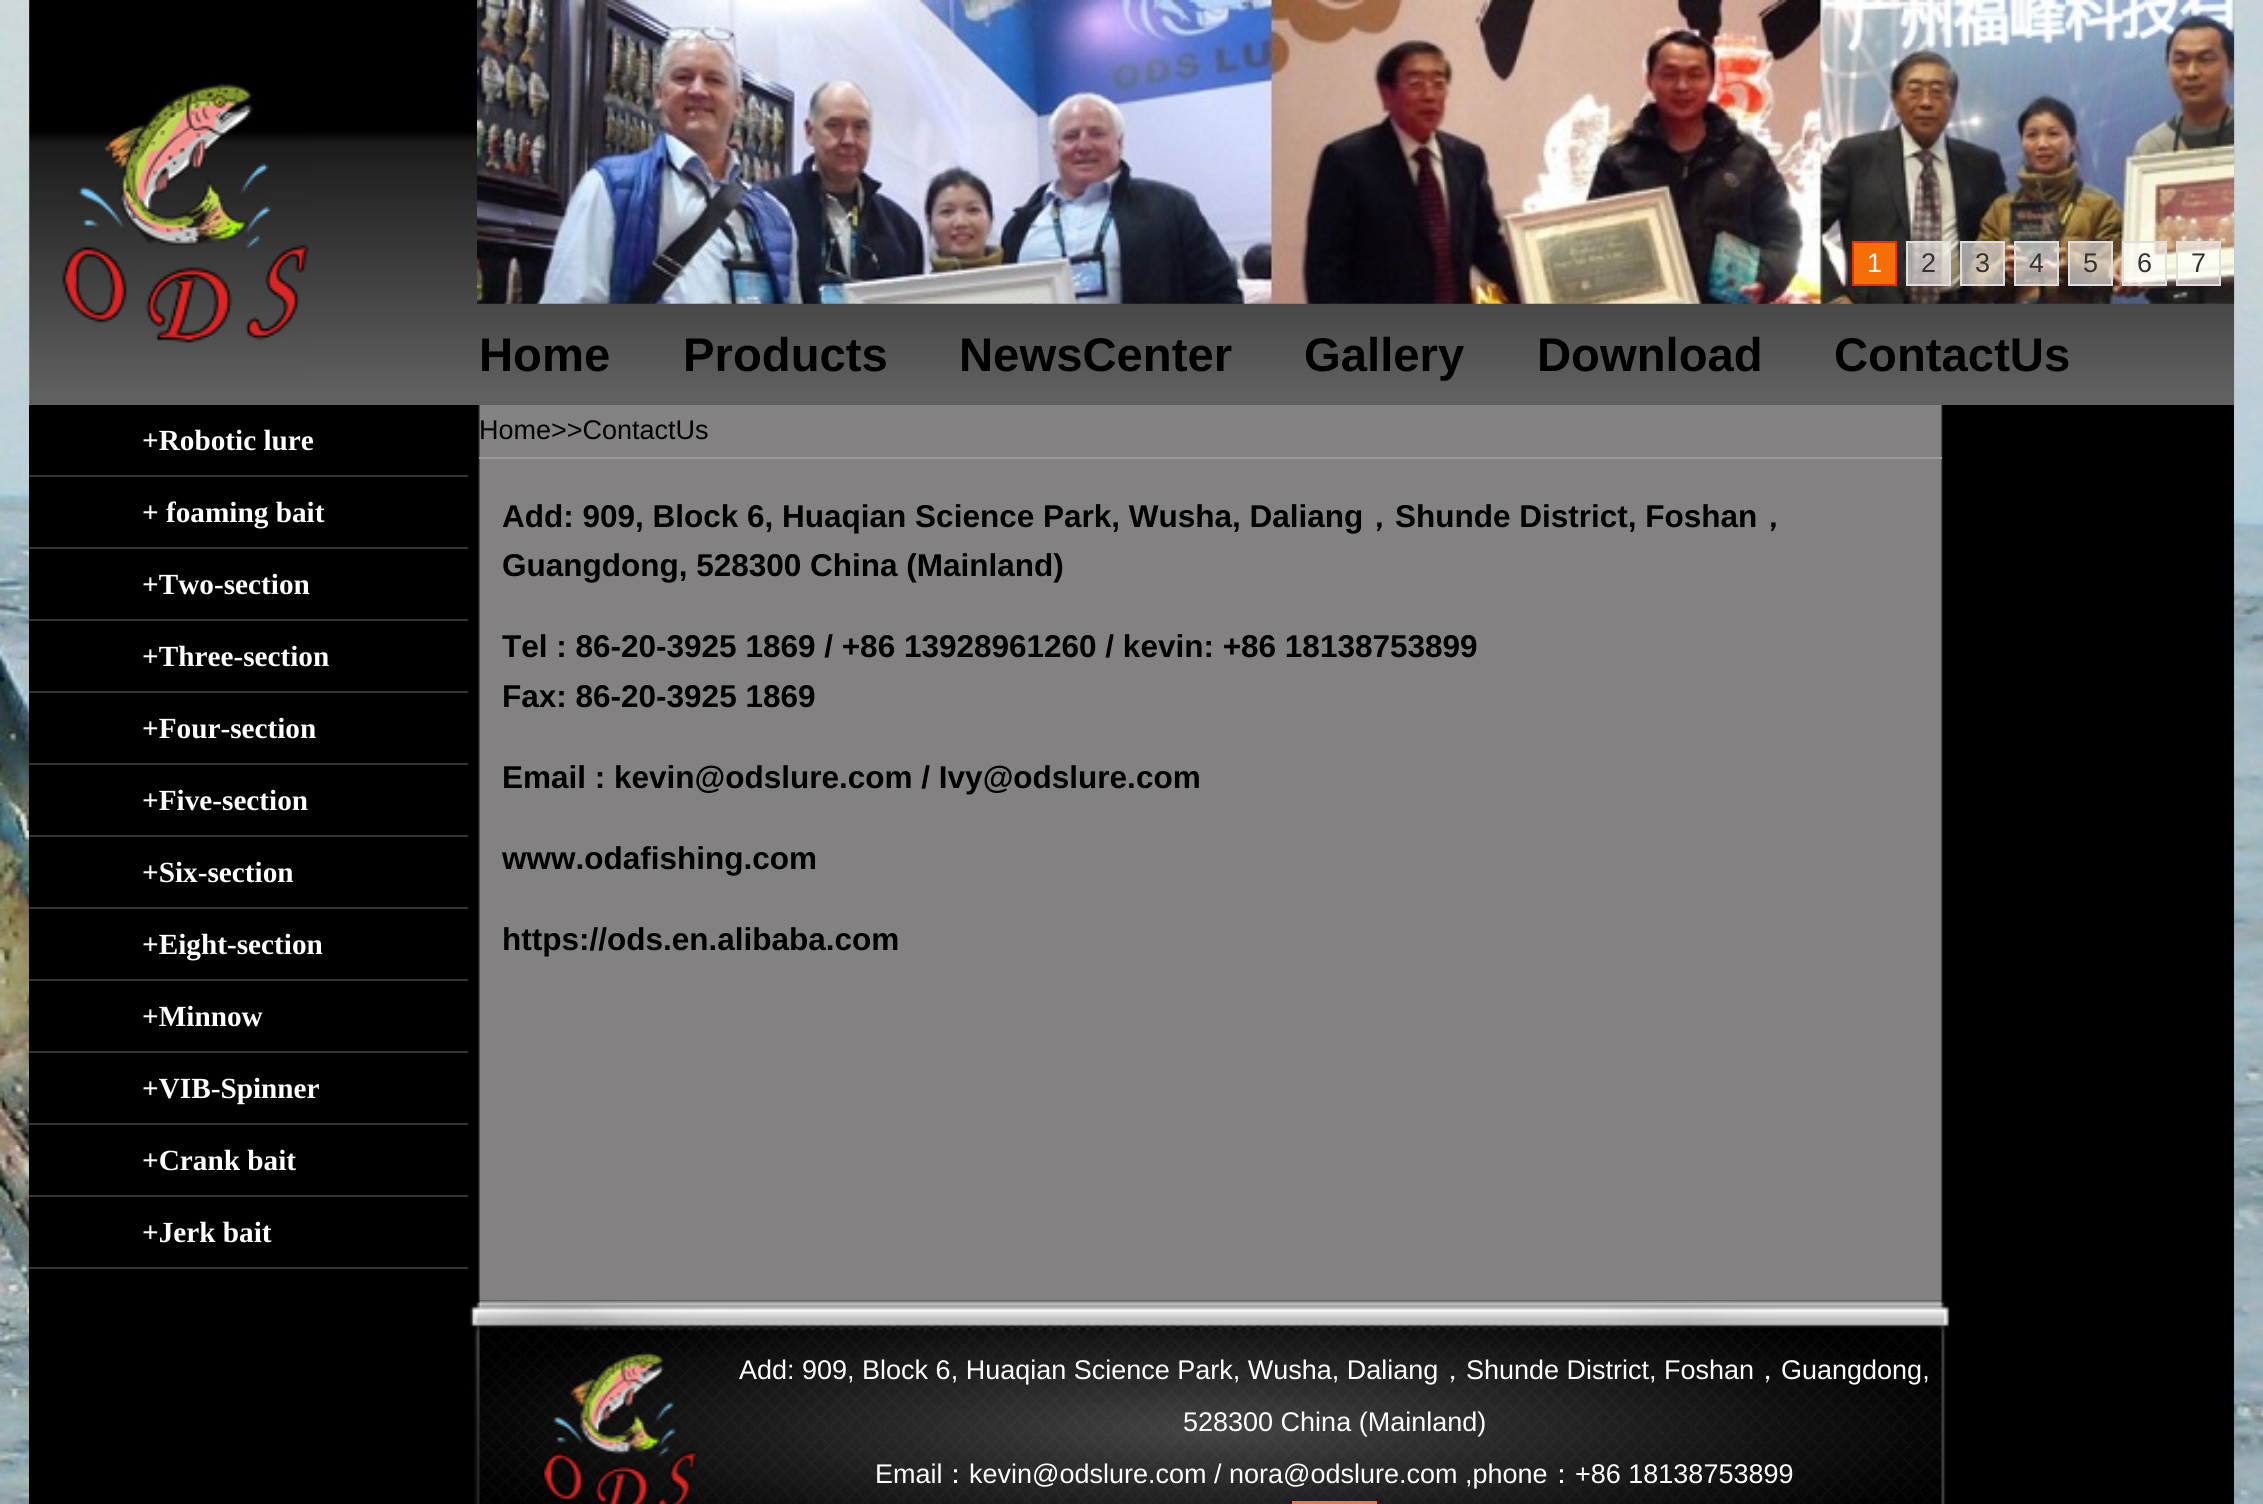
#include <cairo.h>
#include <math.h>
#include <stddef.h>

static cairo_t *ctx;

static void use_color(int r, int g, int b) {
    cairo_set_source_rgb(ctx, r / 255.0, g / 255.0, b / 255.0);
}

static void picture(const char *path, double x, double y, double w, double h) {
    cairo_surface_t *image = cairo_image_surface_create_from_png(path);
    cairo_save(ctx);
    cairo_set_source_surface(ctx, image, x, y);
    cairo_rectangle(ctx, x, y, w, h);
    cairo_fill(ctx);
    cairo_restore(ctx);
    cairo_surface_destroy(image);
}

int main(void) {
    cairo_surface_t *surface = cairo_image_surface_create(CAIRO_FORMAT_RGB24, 2263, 1504);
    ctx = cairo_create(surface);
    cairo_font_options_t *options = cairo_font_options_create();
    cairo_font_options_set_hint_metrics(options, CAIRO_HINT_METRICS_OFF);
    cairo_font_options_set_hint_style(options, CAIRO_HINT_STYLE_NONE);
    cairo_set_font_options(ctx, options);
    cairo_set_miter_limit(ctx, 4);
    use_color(255, 255, 255);
    cairo_paint(ctx);
    picture("img1.png", 0, 0, 2263, 1504);
    picture("img2.png", 29, 0, 2206, 405);
    picture("img3.png", 29, 0, 280, 405);
    picture("img4.png", 477, 0, 1758, 304);
    use_color(246, 110, 8);
    cairo_rectangle(ctx, 1853, 242, 43, 43);
    cairo_fill_preserve(ctx);
    use_color(230, 48, 3);
    cairo_stroke(ctx);
    cairo_select_font_face(ctx, "Liberation Sans", CAIRO_FONT_SLANT_NORMAL, CAIRO_FONT_WEIGHT_NORMAL);
    cairo_set_font_size(ctx, 27);
    use_color(255, 255, 255);
    cairo_move_to(ctx, 1867, 272);
    cairo_show_text(ctx, "1");
    cairo_set_source_rgba(ctx, 1, 1, 1, 0.6);
    cairo_rectangle(ctx, 1907, 242, 43, 43);
    cairo_fill_preserve(ctx);
    use_color(222, 222, 222);
    cairo_stroke(ctx);
    use_color(51, 51, 51);
    cairo_move_to(ctx, 1921, 272);
    cairo_show_text(ctx, "2");
    cairo_set_source_rgba(ctx, 1, 1, 1, 0.6);
    cairo_rectangle(ctx, 1961, 242, 43, 43);
    cairo_fill_preserve(ctx);
    use_color(222, 222, 222);
    cairo_stroke(ctx);
    use_color(51, 51, 51);
    cairo_move_to(ctx, 1975, 272);
    cairo_show_text(ctx, "3");
    cairo_set_source_rgba(ctx, 1, 1, 1, 0.6);
    cairo_rectangle(ctx, 2015, 242, 43, 43);
    cairo_fill_preserve(ctx);
    use_color(222, 222, 222);
    cairo_stroke(ctx);
    use_color(51, 51, 51);
    cairo_move_to(ctx, 2029, 272);
    cairo_show_text(ctx, "4");
    cairo_set_source_rgba(ctx, 1, 1, 1, 0.6);
    cairo_rectangle(ctx, 2069, 242, 43, 43);
    cairo_fill_preserve(ctx);
    use_color(222, 222, 222);
    cairo_stroke(ctx);
    use_color(51, 51, 51);
    cairo_move_to(ctx, 2083, 272);
    cairo_show_text(ctx, "5");
    cairo_set_source_rgba(ctx, 1, 1, 1, 0.6);
    cairo_rectangle(ctx, 2123, 242, 43, 43);
    cairo_fill_preserve(ctx);
    use_color(222, 222, 222);
    cairo_stroke(ctx);
    use_color(51, 51, 51);
    cairo_move_to(ctx, 2137, 272);
    cairo_show_text(ctx, "6");
    cairo_set_source_rgba(ctx, 1, 1, 1, 0.6);
    cairo_rectangle(ctx, 2177, 242, 43, 43);
    cairo_fill_preserve(ctx);
    use_color(222, 222, 222);
    cairo_stroke(ctx);
    use_color(51, 51, 51);
    cairo_move_to(ctx, 2191, 272);
    cairo_show_text(ctx, "7");
    cairo_select_font_face(ctx, "Liberation Sans", CAIRO_FONT_SLANT_NORMAL, CAIRO_FONT_WEIGHT_BOLD);
    cairo_set_font_size(ctx, 47.25);
    use_color(0, 0, 0);
    cairo_move_to(ctx, 479, 371);
    cairo_show_text(ctx, "Home");
    cairo_move_to(ctx, 683, 371);
    cairo_show_text(ctx, "Products");
    cairo_move_to(ctx, 959, 371);
    cairo_show_text(ctx, "NewsCenter");
    cairo_move_to(ctx, 1304, 371);
    cairo_show_text(ctx, "Gallery");
    cairo_move_to(ctx, 1537, 371);
    cairo_show_text(ctx, "Download");
    cairo_move_to(ctx, 1834, 371);
    cairo_show_text(ctx, "ContactUs");
    cairo_rectangle(ctx, 29, 405, 2205, 1099);
    cairo_fill(ctx);
    use_color(51, 51, 51);
    cairo_rectangle(ctx, 29, 475, 439, 2);
    cairo_fill(ctx);
    cairo_select_font_face(ctx, "Liberation Serif", CAIRO_FONT_SLANT_NORMAL, CAIRO_FONT_WEIGHT_BOLD);
    cairo_set_font_size(ctx, 29.25);
    use_color(255, 255, 255);
    cairo_move_to(ctx, 142, 450);
    cairo_show_text(ctx, "+Robotic lure");
    use_color(51, 51, 51);
    cairo_rectangle(ctx, 29, 547, 439, 2);
    cairo_fill(ctx);
    use_color(255, 255, 255);
    cairo_move_to(ctx, 142, 522);
    cairo_show_text(ctx, "+ foaming bait");
    use_color(51, 51, 51);
    cairo_rectangle(ctx, 29, 619, 439, 2);
    cairo_fill(ctx);
    use_color(255, 255, 255);
    cairo_move_to(ctx, 142, 594);
    cairo_show_text(ctx, "+Two-section");
    use_color(51, 51, 51);
    cairo_rectangle(ctx, 29, 691, 439, 2);
    cairo_fill(ctx);
    use_color(255, 255, 255);
    cairo_move_to(ctx, 142, 666);
    cairo_show_text(ctx, "+Three-section");
    use_color(51, 51, 51);
    cairo_rectangle(ctx, 29, 763, 439, 2);
    cairo_fill(ctx);
    use_color(255, 255, 255);
    cairo_move_to(ctx, 142, 738);
    cairo_show_text(ctx, "+Four-section");
    use_color(51, 51, 51);
    cairo_rectangle(ctx, 29, 835, 439, 2);
    cairo_fill(ctx);
    use_color(255, 255, 255);
    cairo_move_to(ctx, 142, 810);
    cairo_show_text(ctx, "+Five-section");
    use_color(51, 51, 51);
    cairo_rectangle(ctx, 29, 907, 439, 2);
    cairo_fill(ctx);
    use_color(255, 255, 255);
    cairo_move_to(ctx, 142, 882);
    cairo_show_text(ctx, "+Six-section");
    use_color(51, 51, 51);
    cairo_rectangle(ctx, 29, 979, 439, 2);
    cairo_fill(ctx);
    use_color(255, 255, 255);
    cairo_move_to(ctx, 142, 954);
    cairo_show_text(ctx, "+Eight-section");
    use_color(51, 51, 51);
    cairo_rectangle(ctx, 29, 1051, 439, 2);
    cairo_fill(ctx);
    use_color(255, 255, 255);
    cairo_move_to(ctx, 142, 1026);
    cairo_show_text(ctx, "+Minnow");
    use_color(51, 51, 51);
    cairo_rectangle(ctx, 29, 1123, 439, 2);
    cairo_fill(ctx);
    use_color(255, 255, 255);
    cairo_move_to(ctx, 142, 1098);
    cairo_show_text(ctx, "+VIB-Spinner");
    use_color(51, 51, 51);
    cairo_rectangle(ctx, 29, 1195, 439, 2);
    cairo_fill(ctx);
    use_color(255, 255, 255);
    cairo_move_to(ctx, 142, 1170);
    cairo_show_text(ctx, "+Crank bait");
    use_color(51, 51, 51);
    cairo_rectangle(ctx, 29, 1267, 439, 2);
    cairo_fill(ctx);
    use_color(255, 255, 255);
    cairo_move_to(ctx, 142, 1242);
    cairo_show_text(ctx, "+Jerk bait");
    picture("img5.png", 468, 405, 1485, 896);
    use_color(153, 153, 153);
    cairo_rectangle(ctx, 479, 457, 1463, 2);
    cairo_fill(ctx);
    cairo_select_font_face(ctx, "Liberation Sans", CAIRO_FONT_SLANT_NORMAL, CAIRO_FONT_WEIGHT_NORMAL);
    cairo_set_font_size(ctx, 27);
    use_color(0, 0, 0);
    cairo_move_to(ctx, 479, 439);
    cairo_show_text(ctx, "Home>>ContactUs");
    cairo_select_font_face(ctx, "Liberation Sans", CAIRO_FONT_SLANT_NORMAL, CAIRO_FONT_WEIGHT_BOLD);
    cairo_set_font_size(ctx, 31.5);
    cairo_move_to(ctx, 502, 527);
    cairo_show_text(ctx, "Add: 909, Block 6, Huaqian Science Park, Wusha, Daliang");
    cairo_select_font_face(ctx, "WenQuanYi Zen Hei", CAIRO_FONT_SLANT_NORMAL, CAIRO_FONT_WEIGHT_BOLD);
    cairo_move_to(ctx, 1363, 527);
    cairo_show_text(ctx, "，");
    cairo_select_font_face(ctx, "Liberation Sans", CAIRO_FONT_SLANT_NORMAL, CAIRO_FONT_WEIGHT_BOLD);
    cairo_move_to(ctx, 1395, 527);
    cairo_show_text(ctx, "Shunde District, Foshan");
    cairo_select_font_face(ctx, "WenQuanYi Zen Hei", CAIRO_FONT_SLANT_NORMAL, CAIRO_FONT_WEIGHT_BOLD);
    cairo_move_to(ctx, 1757, 527);
    cairo_show_text(ctx, "，");
    cairo_select_font_face(ctx, "Liberation Sans", CAIRO_FONT_SLANT_NORMAL, CAIRO_FONT_WEIGHT_BOLD);
    cairo_move_to(ctx, 502, 576);
    cairo_show_text(ctx, "Guangdong, 528300 China (Mainland)");
    cairo_move_to(ctx, 502, 657);
    cairo_show_text(ctx, "Tel : 86-20-3925 1869 / +86 13928961260 / kevin: +86 18138753899");
    cairo_move_to(ctx, 502, 707);
    cairo_show_text(ctx, "Fax: 86-20-3925 1869");
    cairo_move_to(ctx, 502, 788);
    cairo_show_text(ctx, "Email : kevin@odslure.com / Ivy@odslure.com");
    cairo_move_to(ctx, 502, 869);
    cairo_show_text(ctx, "www.odafishing.com");
    cairo_move_to(ctx, 502, 950);
    cairo_show_text(ctx, "https://ods.en.alibaba.com");
    picture("img6.png", 468, 1300, 1485, 204);
    cairo_select_font_face(ctx, "Liberation Sans", CAIRO_FONT_SLANT_NORMAL, CAIRO_FONT_WEIGHT_NORMAL);
    cairo_set_font_size(ctx, 27);
    use_color(255, 255, 255);
    cairo_move_to(ctx, 739, 1379);
    cairo_show_text(ctx, "Add: 909, Block 6, Huaqian Science Park, Wusha, Daliang");
    cairo_select_font_face(ctx, "WenQuanYi Zen Hei Medium", CAIRO_FONT_SLANT_NORMAL, CAIRO_FONT_WEIGHT_NORMAL);
    cairo_move_to(ctx, 1439, 1379);
    cairo_show_text(ctx, "，");
    cairo_select_font_face(ctx, "Liberation Sans", CAIRO_FONT_SLANT_NORMAL, CAIRO_FONT_WEIGHT_NORMAL);
    cairo_move_to(ctx, 1466, 1379);
    cairo_show_text(ctx, "Shunde District, Foshan");
    cairo_select_font_face(ctx, "WenQuanYi Zen Hei Medium", CAIRO_FONT_SLANT_NORMAL, CAIRO_FONT_WEIGHT_NORMAL);
    cairo_move_to(ctx, 1754, 1379);
    cairo_show_text(ctx, "，");
    cairo_select_font_face(ctx, "Liberation Sans", CAIRO_FONT_SLANT_NORMAL, CAIRO_FONT_WEIGHT_NORMAL);
    cairo_move_to(ctx, 1781, 1379);
    cairo_show_text(ctx, "Guangdong,");
    cairo_move_to(ctx, 1183, 1431);
    cairo_show_text(ctx, "528300 China (Mainland)");
    cairo_move_to(ctx, 875, 1483);
    cairo_show_text(ctx, "Email");
    cairo_select_font_face(ctx, "WenQuanYi Zen Hei Medium", CAIRO_FONT_SLANT_NORMAL, CAIRO_FONT_WEIGHT_NORMAL);
    cairo_move_to(ctx, 942, 1483);
    cairo_show_text(ctx, "：");
    cairo_select_font_face(ctx, "Liberation Sans", CAIRO_FONT_SLANT_NORMAL, CAIRO_FONT_WEIGHT_NORMAL);
    cairo_move_to(ctx, 969, 1483);
    cairo_show_text(ctx, "kevin@odslure.com / nora@odslure.com ,phone");
    cairo_select_font_face(ctx, "WenQuanYi Zen Hei Medium", CAIRO_FONT_SLANT_NORMAL, CAIRO_FONT_WEIGHT_NORMAL);
    cairo_move_to(ctx, 1548, 1483);
    cairo_show_text(ctx, "：");
    cairo_select_font_face(ctx, "Liberation Sans", CAIRO_FONT_SLANT_NORMAL, CAIRO_FONT_WEIGHT_NORMAL);
    cairo_move_to(ctx, 1575, 1483);
    cairo_show_text(ctx, "+86 18138753899");
    use_color(255, 112, 67);
    cairo_rectangle(ctx, 1292, 1501, 85, 3);
    cairo_fill(ctx);
    cairo_surface_write_to_png(surface, "result.png");
    cairo_font_options_destroy(options);
    cairo_destroy(ctx);
    cairo_surface_destroy(surface);
    return 0;
}
